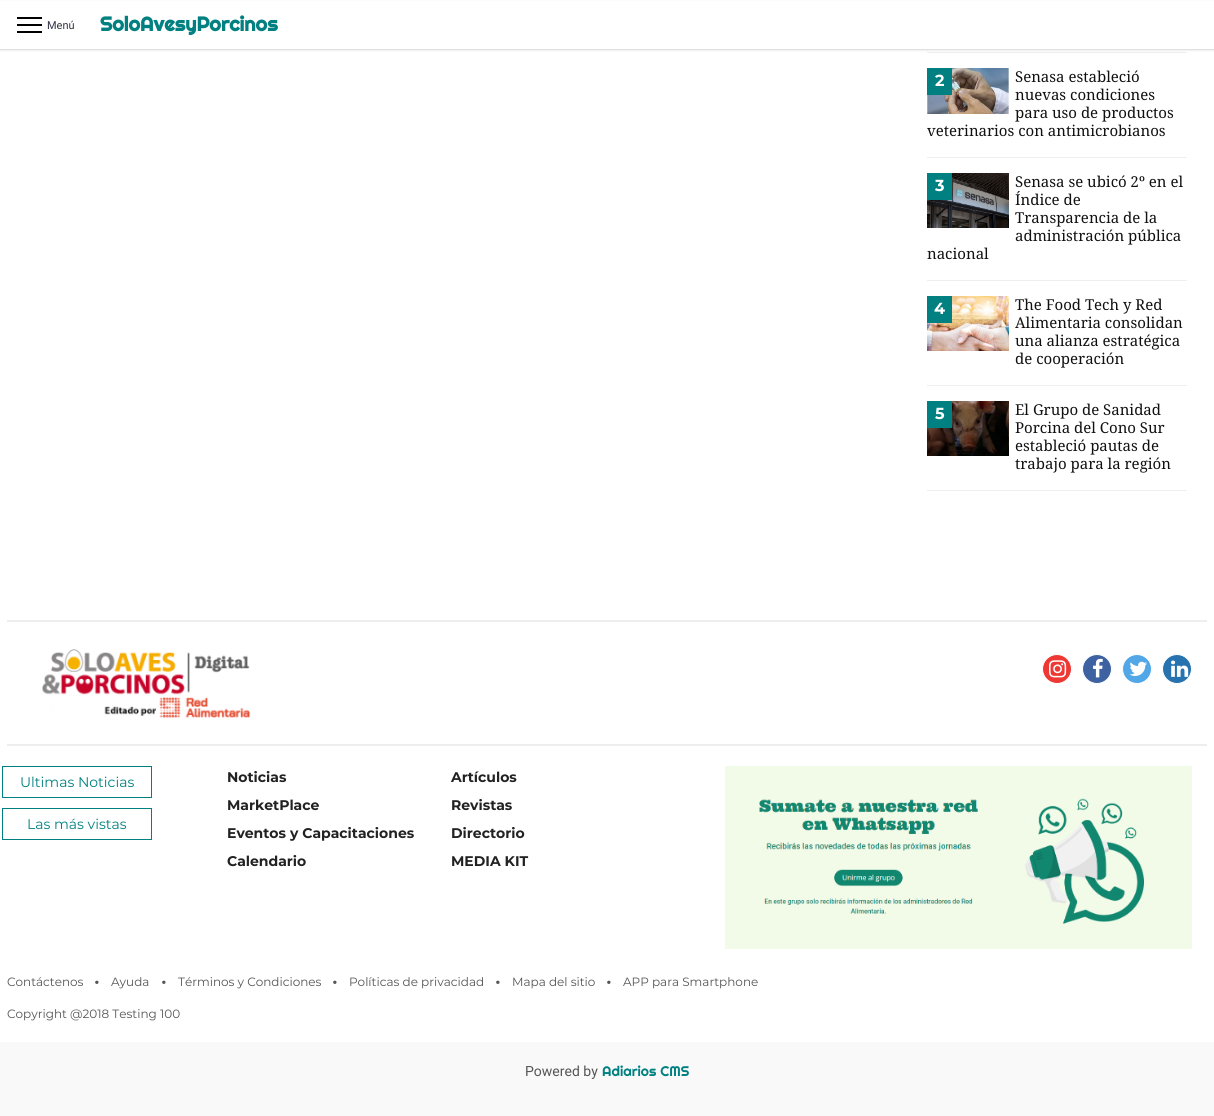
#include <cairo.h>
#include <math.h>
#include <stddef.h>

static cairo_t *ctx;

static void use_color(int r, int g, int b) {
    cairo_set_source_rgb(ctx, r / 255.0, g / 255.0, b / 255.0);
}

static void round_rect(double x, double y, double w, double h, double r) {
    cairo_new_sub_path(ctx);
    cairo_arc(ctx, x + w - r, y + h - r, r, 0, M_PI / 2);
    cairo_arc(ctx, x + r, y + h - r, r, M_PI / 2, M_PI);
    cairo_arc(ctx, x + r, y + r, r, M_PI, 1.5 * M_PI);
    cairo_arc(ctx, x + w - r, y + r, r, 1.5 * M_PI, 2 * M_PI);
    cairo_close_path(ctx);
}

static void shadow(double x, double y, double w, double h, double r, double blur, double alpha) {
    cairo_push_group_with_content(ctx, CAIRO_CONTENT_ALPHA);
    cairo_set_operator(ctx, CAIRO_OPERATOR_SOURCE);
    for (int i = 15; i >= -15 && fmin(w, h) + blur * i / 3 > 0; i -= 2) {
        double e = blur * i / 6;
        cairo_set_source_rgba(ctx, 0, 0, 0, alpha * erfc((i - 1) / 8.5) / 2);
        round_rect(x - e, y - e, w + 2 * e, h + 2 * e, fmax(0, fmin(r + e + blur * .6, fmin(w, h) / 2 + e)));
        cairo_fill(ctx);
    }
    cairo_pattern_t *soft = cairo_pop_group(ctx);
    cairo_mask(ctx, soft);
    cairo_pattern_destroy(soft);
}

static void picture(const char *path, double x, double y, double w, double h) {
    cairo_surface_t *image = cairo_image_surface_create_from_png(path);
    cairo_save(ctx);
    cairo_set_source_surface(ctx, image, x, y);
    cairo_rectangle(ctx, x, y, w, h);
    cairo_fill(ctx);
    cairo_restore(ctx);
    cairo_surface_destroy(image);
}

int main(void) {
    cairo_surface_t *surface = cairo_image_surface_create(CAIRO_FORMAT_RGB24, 1214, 1116);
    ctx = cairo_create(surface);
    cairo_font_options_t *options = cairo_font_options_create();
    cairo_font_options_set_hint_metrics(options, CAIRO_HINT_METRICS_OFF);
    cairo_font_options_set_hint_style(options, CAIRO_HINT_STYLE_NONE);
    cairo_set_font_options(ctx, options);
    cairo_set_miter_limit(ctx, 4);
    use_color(255, 255, 255);
    cairo_paint(ctx);
    use_color(238, 238, 238);
    cairo_rectangle(ctx, 927, 52, 260, 1);
    cairo_fill(ctx);
    use_color(240, 240, 240);
    shadow(0, 1, 1214, 50, 0, 0.5, 1);
    use_color(255, 255, 255);
    cairo_rectangle(ctx, 0, 1, 1214, 48);
    cairo_fill(ctx);
    use_color(225, 225, 225);
    cairo_rectangle(ctx, 0, 49, 1214, 1);
    cairo_fill(ctx);
    use_color(0, 0, 0);
    cairo_rectangle(ctx, 17, 17, 25, 2);
    cairo_fill(ctx);
    cairo_rectangle(ctx, 17, 24, 25, 2);
    cairo_fill(ctx);
    cairo_rectangle(ctx, 17, 31, 25, 2);
    cairo_fill(ctx);
    cairo_select_font_face(ctx, "Roboto", CAIRO_FONT_SLANT_NORMAL, CAIRO_FONT_WEIGHT_NORMAL);
    cairo_set_font_size(ctx, 11);
    use_color(51, 51, 69);
    cairo_move_to(ctx, 47, 29);
    cairo_show_text(ctx, "Menú");
    cairo_select_font_face(ctx, "Righteous", CAIRO_FONT_SLANT_NORMAL, CAIRO_FONT_WEIGHT_BOLD);
    cairo_set_font_size(ctx, 20);
    use_color(0, 128, 128);
    cairo_move_to(ctx, 100, 31);
    cairo_show_text(ctx, "SoloAvesyPorcinos");
    use_color(238, 238, 238);
    cairo_rectangle(ctx, 927, 157, 260, 1);
    cairo_fill(ctx);
    cairo_select_font_face(ctx, "Droid Serif", CAIRO_FONT_SLANT_NORMAL, CAIRO_FONT_WEIGHT_NORMAL);
    cairo_set_font_size(ctx, 15);
    use_color(17, 17, 17);
    cairo_move_to(ctx, 1015, 82);
    cairo_show_text(ctx, "Senasa estableció");
    cairo_move_to(ctx, 1015, 100);
    cairo_show_text(ctx, "nuevas condiciones");
    cairo_move_to(ctx, 1015, 118);
    cairo_show_text(ctx, "para uso de productos");
    cairo_move_to(ctx, 927, 136);
    cairo_show_text(ctx, "veterinarios con antimicrobianos");
    picture("img1.png", 927, 68, 82, 46);
    use_color(0, 128, 128);
    cairo_rectangle(ctx, 927, 68, 25, 27);
    cairo_fill(ctx);
    cairo_select_font_face(ctx, "Montserrat", CAIRO_FONT_SLANT_NORMAL, CAIRO_FONT_WEIGHT_BOLD);
    cairo_set_font_size(ctx, 16);
    use_color(255, 255, 255);
    cairo_move_to(ctx, 935, 86);
    cairo_show_text(ctx, "2");
    use_color(238, 238, 238);
    cairo_rectangle(ctx, 927, 280, 260, 1);
    cairo_fill(ctx);
    cairo_select_font_face(ctx, "Droid Serif", CAIRO_FONT_SLANT_NORMAL, CAIRO_FONT_WEIGHT_NORMAL);
    cairo_set_font_size(ctx, 15);
    use_color(17, 17, 17);
    cairo_move_to(ctx, 1015, 187);
    cairo_show_text(ctx, "Senasa se ubicó 2º en el");
    cairo_move_to(ctx, 1015, 205);
    cairo_show_text(ctx, "Índice de");
    cairo_move_to(ctx, 1015, 223);
    cairo_show_text(ctx, "Transparencia de la");
    cairo_move_to(ctx, 1015, 241);
    cairo_show_text(ctx, "administración pública");
    cairo_move_to(ctx, 927, 259);
    cairo_show_text(ctx, "nacional");
    picture("img2.png", 927, 173, 82, 55);
    use_color(0, 128, 128);
    cairo_rectangle(ctx, 927, 173, 25, 27);
    cairo_fill(ctx);
    cairo_select_font_face(ctx, "Montserrat", CAIRO_FONT_SLANT_NORMAL, CAIRO_FONT_WEIGHT_BOLD);
    cairo_set_font_size(ctx, 16);
    use_color(255, 255, 255);
    cairo_move_to(ctx, 935, 191);
    cairo_show_text(ctx, "3");
    use_color(238, 238, 238);
    cairo_rectangle(ctx, 927, 385, 260, 1);
    cairo_fill(ctx);
    picture("img3.png", 927, 296, 82, 55);
    use_color(0, 128, 128);
    cairo_rectangle(ctx, 927, 296, 25, 27);
    cairo_fill(ctx);
    use_color(255, 255, 255);
    cairo_move_to(ctx, 934, 314);
    cairo_show_text(ctx, "4");
    cairo_select_font_face(ctx, "Droid Serif", CAIRO_FONT_SLANT_NORMAL, CAIRO_FONT_WEIGHT_NORMAL);
    cairo_set_font_size(ctx, 15);
    use_color(17, 17, 17);
    cairo_move_to(ctx, 1015, 310);
    cairo_show_text(ctx, "The Food Tech y Red");
    cairo_move_to(ctx, 1015, 328);
    cairo_show_text(ctx, "Alimentaria consolidan");
    cairo_move_to(ctx, 1015, 346);
    cairo_show_text(ctx, "una alianza estratégica");
    cairo_move_to(ctx, 1015, 364);
    cairo_show_text(ctx, "de cooperación");
    use_color(238, 238, 238);
    cairo_rectangle(ctx, 927, 490, 260, 1);
    cairo_fill(ctx);
    picture("img4.png", 927, 401, 82, 55);
    use_color(0, 128, 128);
    cairo_rectangle(ctx, 927, 401, 25, 27);
    cairo_fill(ctx);
    cairo_select_font_face(ctx, "Montserrat", CAIRO_FONT_SLANT_NORMAL, CAIRO_FONT_WEIGHT_BOLD);
    cairo_set_font_size(ctx, 16);
    use_color(255, 255, 255);
    cairo_move_to(ctx, 935, 419);
    cairo_show_text(ctx, "5");
    cairo_select_font_face(ctx, "Droid Serif", CAIRO_FONT_SLANT_NORMAL, CAIRO_FONT_WEIGHT_NORMAL);
    cairo_set_font_size(ctx, 15);
    use_color(17, 17, 17);
    cairo_move_to(ctx, 1015, 415);
    cairo_show_text(ctx, "El Grupo de Sanidad");
    cairo_move_to(ctx, 1015, 433);
    cairo_show_text(ctx, "Porcina del Cono Sur");
    cairo_move_to(ctx, 1015, 451);
    cairo_show_text(ctx, "estableció pautas de");
    cairo_move_to(ctx, 1015, 469);
    cairo_show_text(ctx, "trabajo para la región");
    use_color(238, 238, 238);
    cairo_rectangle(ctx, 7, 620, 1200, 2);
    cairo_fill(ctx);
    cairo_rectangle(ctx, 7, 744, 1200, 2);
    cairo_fill(ctx);
    picture("img5.png", 42, 649, 209, 69);
    use_color(237, 56, 51);
    cairo_arc(ctx, 1057, 669, 14.5, 0, 2 * M_PI);
    cairo_fill_preserve(ctx);
    use_color(255, 255, 255);
    cairo_set_line_width(ctx, 1);
    cairo_stroke(ctx);
    picture("img6.png", 1049, 660, 18, 18);
    use_color(62, 98, 161);
    cairo_arc(ctx, 1097, 669, 14.5, 0, 2 * M_PI);
    cairo_fill_preserve(ctx);
    use_color(255, 255, 255);
    cairo_stroke(ctx);
    picture("img7.png", 1093, 658, 10, 20);
    use_color(82, 167, 231);
    cairo_arc(ctx, 1137, 669, 14.5, 0, 2 * M_PI);
    cairo_fill_preserve(ctx);
    use_color(255, 255, 255);
    cairo_stroke(ctx);
    picture("img8.png", 1129, 661, 18, 15);
    use_color(38, 115, 175);
    cairo_arc(ctx, 1177, 669, 14.5, 0, 2 * M_PI);
    cairo_fill_preserve(ctx);
    use_color(255, 255, 255);
    cairo_stroke(ctx);
    picture("img9.png", 1171, 660, 18, 17);
    cairo_rectangle(ctx, 2.5, 766.5, 149, 31);
    use_color(0, 128, 128);
    cairo_stroke(ctx);
    cairo_select_font_face(ctx, "Montserrat", CAIRO_FONT_SLANT_NORMAL, CAIRO_FONT_WEIGHT_NORMAL);
    cairo_set_font_size(ctx, 14);
    cairo_move_to(ctx, 20, 787);
    cairo_show_text(ctx, "Ultimas Noticias");
    cairo_rectangle(ctx, 2.5, 808.5, 149, 31);
    cairo_stroke(ctx);
    cairo_move_to(ctx, 27, 829);
    cairo_show_text(ctx, "Las más vistas");
    cairo_select_font_face(ctx, "Montserrat", CAIRO_FONT_SLANT_NORMAL, CAIRO_FONT_WEIGHT_BOLD);
    use_color(34, 34, 34);
    cairo_move_to(ctx, 227, 782);
    cairo_show_text(ctx, "Noticias");
    cairo_move_to(ctx, 451, 782);
    cairo_show_text(ctx, "Artículos");
    cairo_move_to(ctx, 227, 810);
    cairo_show_text(ctx, "MarketPlace");
    cairo_move_to(ctx, 451, 810);
    cairo_show_text(ctx, "Revistas");
    cairo_move_to(ctx, 227, 838);
    cairo_show_text(ctx, "Eventos y Capacitaciones");
    cairo_move_to(ctx, 451, 838);
    cairo_show_text(ctx, "Directorio");
    cairo_move_to(ctx, 227, 866);
    cairo_show_text(ctx, "Calendario");
    cairo_move_to(ctx, 451, 866);
    cairo_show_text(ctx, "MEDIA KIT");
    picture("img10.png", 725, 766, 467, 183);
    cairo_select_font_face(ctx, "Montserrat", CAIRO_FONT_SLANT_NORMAL, CAIRO_FONT_WEIGHT_NORMAL);
    cairo_set_font_size(ctx, 12);
    use_color(85, 85, 85);
    cairo_move_to(ctx, 7, 986);
    cairo_show_text(ctx, "Contáctenos");
    cairo_select_font_face(ctx, "Roboto", CAIRO_FONT_SLANT_NORMAL, CAIRO_FONT_WEIGHT_NORMAL);
    cairo_set_font_size(ctx, 30);
    cairo_move_to(ctx, 93, 993);
    cairo_show_text(ctx, "·");
    cairo_select_font_face(ctx, "Montserrat", CAIRO_FONT_SLANT_NORMAL, CAIRO_FONT_WEIGHT_NORMAL);
    cairo_set_font_size(ctx, 12);
    cairo_move_to(ctx, 111, 986);
    cairo_show_text(ctx, "Ayuda");
    cairo_select_font_face(ctx, "Roboto", CAIRO_FONT_SLANT_NORMAL, CAIRO_FONT_WEIGHT_NORMAL);
    cairo_set_font_size(ctx, 30);
    cairo_move_to(ctx, 160, 993);
    cairo_show_text(ctx, "·");
    cairo_select_font_face(ctx, "Montserrat", CAIRO_FONT_SLANT_NORMAL, CAIRO_FONT_WEIGHT_NORMAL);
    cairo_set_font_size(ctx, 12);
    cairo_move_to(ctx, 178, 986);
    cairo_show_text(ctx, "Términos y Condiciones");
    cairo_select_font_face(ctx, "Roboto", CAIRO_FONT_SLANT_NORMAL, CAIRO_FONT_WEIGHT_NORMAL);
    cairo_set_font_size(ctx, 30);
    cairo_move_to(ctx, 331, 993);
    cairo_show_text(ctx, "·");
    cairo_select_font_face(ctx, "Montserrat", CAIRO_FONT_SLANT_NORMAL, CAIRO_FONT_WEIGHT_NORMAL);
    cairo_set_font_size(ctx, 12);
    cairo_move_to(ctx, 349, 986);
    cairo_show_text(ctx, "Políticas de privacidad");
    cairo_select_font_face(ctx, "Roboto", CAIRO_FONT_SLANT_NORMAL, CAIRO_FONT_WEIGHT_NORMAL);
    cairo_set_font_size(ctx, 30);
    cairo_move_to(ctx, 494, 993);
    cairo_show_text(ctx, "·");
    cairo_select_font_face(ctx, "Montserrat", CAIRO_FONT_SLANT_NORMAL, CAIRO_FONT_WEIGHT_NORMAL);
    cairo_set_font_size(ctx, 12);
    cairo_move_to(ctx, 512, 986);
    cairo_show_text(ctx, "Mapa del sitio");
    cairo_select_font_face(ctx, "Roboto", CAIRO_FONT_SLANT_NORMAL, CAIRO_FONT_WEIGHT_NORMAL);
    cairo_set_font_size(ctx, 30);
    cairo_move_to(ctx, 605, 993);
    cairo_show_text(ctx, "·");
    cairo_select_font_face(ctx, "Montserrat", CAIRO_FONT_SLANT_NORMAL, CAIRO_FONT_WEIGHT_NORMAL);
    cairo_set_font_size(ctx, 12);
    cairo_move_to(ctx, 623, 986);
    cairo_show_text(ctx, "APP para Smartphone");
    cairo_move_to(ctx, 7, 1018);
    cairo_show_text(ctx, "Copyright @2018 Testing 100");
    use_color(249, 249, 249);
    cairo_rectangle(ctx, 0, 1042, 1214, 74);
    cairo_fill(ctx);
    cairo_select_font_face(ctx, "Roboto", CAIRO_FONT_SLANT_NORMAL, CAIRO_FONT_WEIGHT_NORMAL);
    cairo_set_font_size(ctx, 14);
    use_color(85, 85, 85);
    cairo_move_to(ctx, 525, 1076);
    cairo_show_text(ctx, "Powered by");
    cairo_select_font_face(ctx, "Righteous", CAIRO_FONT_SLANT_NORMAL, CAIRO_FONT_WEIGHT_NORMAL);
    use_color(0, 128, 128);
    cairo_move_to(ctx, 602, 1076);
    cairo_show_text(ctx, "Adiarios CMS");
    cairo_surface_write_to_png(surface, "result.png");
    cairo_font_options_destroy(options);
    cairo_destroy(ctx);
    cairo_surface_destroy(surface);
    return 0;
}
